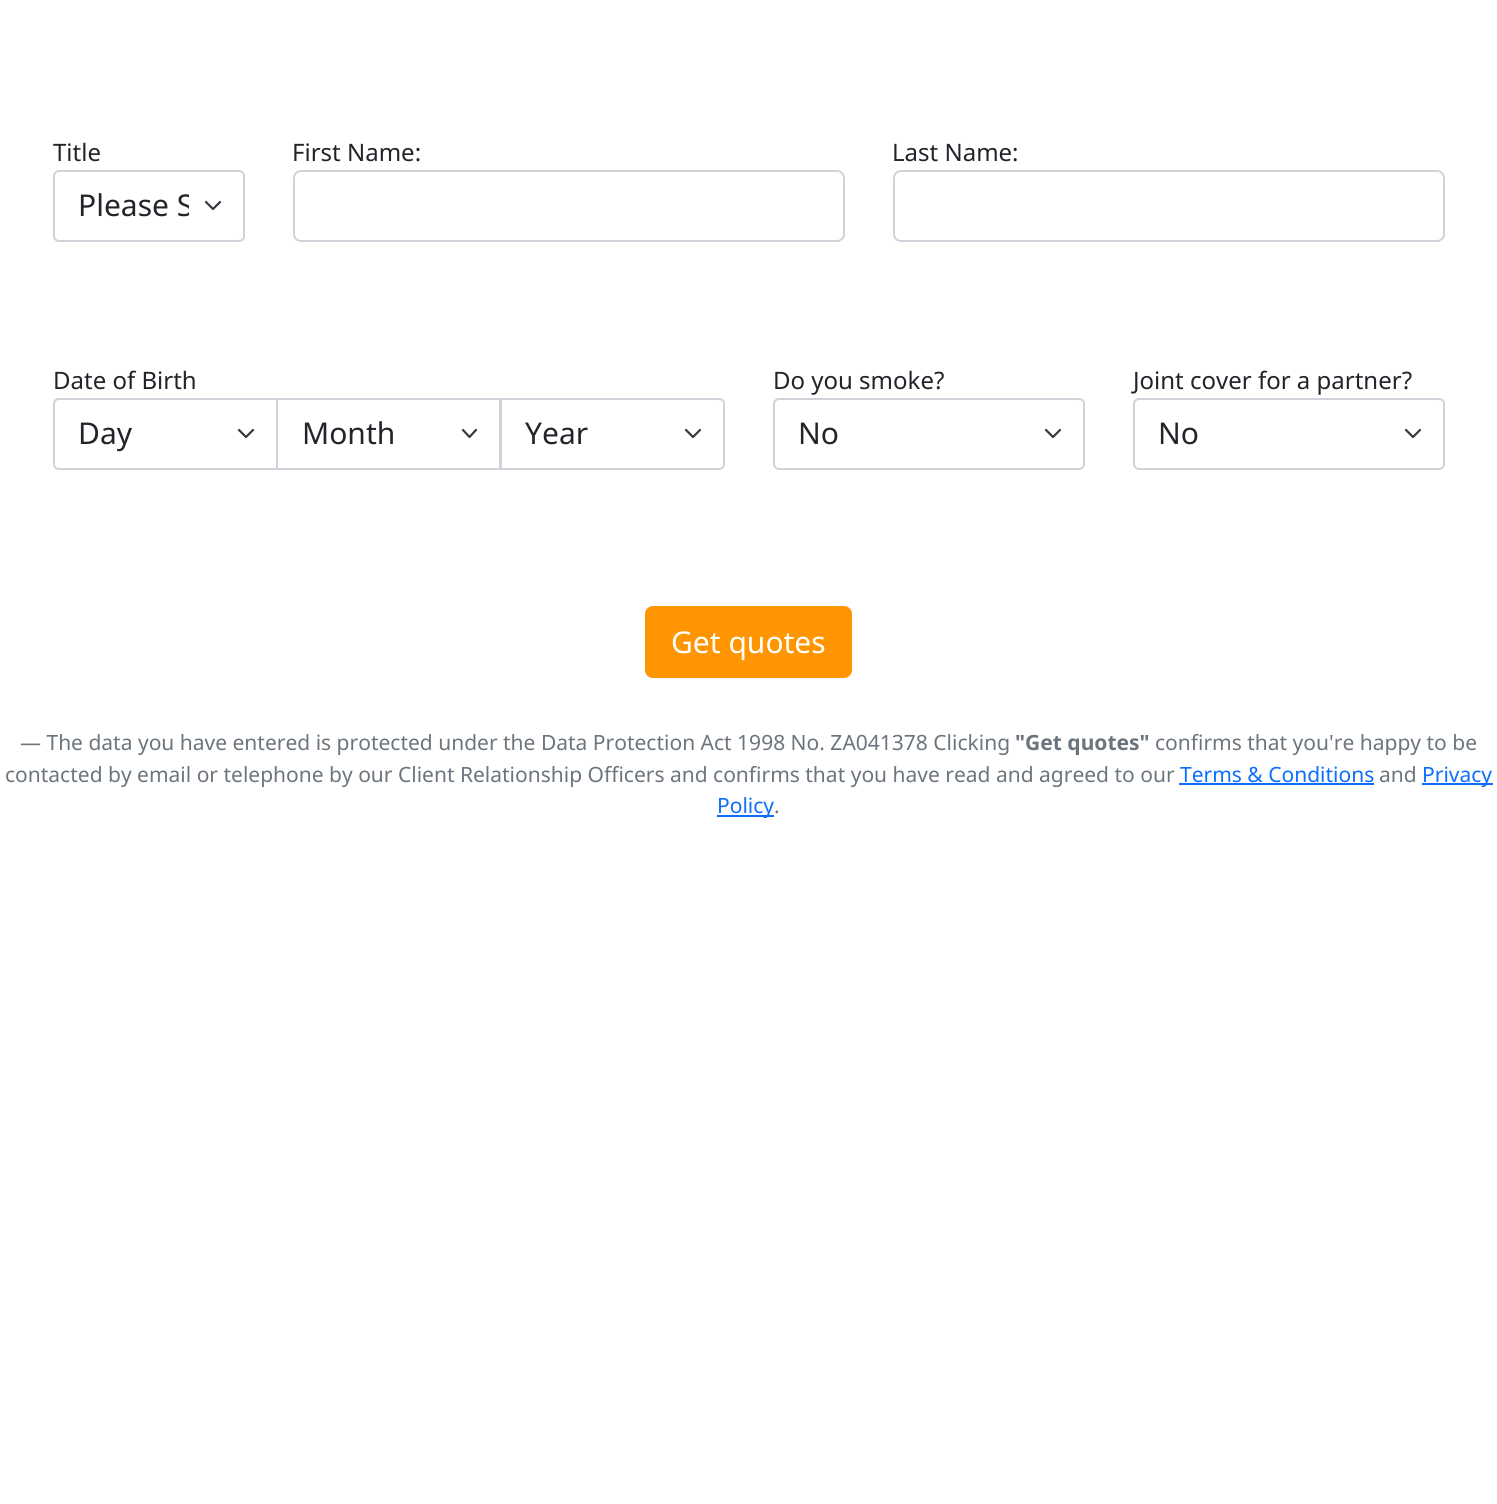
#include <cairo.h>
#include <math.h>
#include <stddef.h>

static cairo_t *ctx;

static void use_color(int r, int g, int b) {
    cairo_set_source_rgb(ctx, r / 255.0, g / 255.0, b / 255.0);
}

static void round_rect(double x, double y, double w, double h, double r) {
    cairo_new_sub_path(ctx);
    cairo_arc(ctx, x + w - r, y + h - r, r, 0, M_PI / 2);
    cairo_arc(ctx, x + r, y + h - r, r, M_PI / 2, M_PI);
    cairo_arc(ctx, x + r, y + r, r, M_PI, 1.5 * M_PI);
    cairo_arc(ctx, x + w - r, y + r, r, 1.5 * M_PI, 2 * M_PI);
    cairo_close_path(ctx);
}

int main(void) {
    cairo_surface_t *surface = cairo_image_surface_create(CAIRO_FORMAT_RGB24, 1497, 1504);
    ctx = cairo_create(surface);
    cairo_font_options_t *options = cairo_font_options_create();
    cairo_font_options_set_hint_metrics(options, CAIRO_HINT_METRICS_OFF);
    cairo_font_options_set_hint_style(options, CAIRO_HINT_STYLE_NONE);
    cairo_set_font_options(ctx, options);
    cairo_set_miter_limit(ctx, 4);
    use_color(255, 255, 255);
    cairo_paint(ctx);
    cairo_select_font_face(ctx, "Noto Sans", CAIRO_FONT_SLANT_NORMAL, CAIRO_FONT_WEIGHT_NORMAL);
    cairo_set_font_size(ctx, 24);
    use_color(33, 37, 41);
    cairo_move_to(ctx, 53, 161);
    cairo_show_text(ctx, "Title");
    cairo_new_path(ctx);
    cairo_move_to(ctx, 206, 202);
    cairo_line_to(ctx, 213, 209);
    cairo_line_to(ctx, 220, 202);
    use_color(52, 58, 64);
    cairo_set_line_width(ctx, 2.2);
    cairo_set_line_cap(ctx, CAIRO_LINE_CAP_ROUND);
    cairo_set_line_join(ctx, CAIRO_LINE_JOIN_ROUND);
    cairo_stroke(ctx);
    round_rect(54, 171, 190, 70, 5);
    use_color(206, 212, 218);
    cairo_set_line_width(ctx, 2);
    cairo_set_line_cap(ctx, CAIRO_LINE_CAP_BUTT);
    cairo_set_line_join(ctx, CAIRO_LINE_JOIN_MITER);
    cairo_stroke(ctx);
    cairo_save(ctx);
    cairo_rectangle(ctx, 78, 183, 111, 45);
    cairo_clip(ctx);
    cairo_set_font_size(ctx, 30);
    use_color(33, 37, 41);
    cairo_move_to(ctx, 78, 216);
    cairo_show_text(ctx, "Please S");
    cairo_restore(ctx);
    use_color(33, 37, 41);
    cairo_move_to(ctx, 292, 161);
    cairo_show_text(ctx, "First Name:");
    round_rect(294, 171, 550, 70, 7);
    use_color(206, 212, 218);
    cairo_stroke(ctx);
    use_color(33, 37, 41);
    cairo_move_to(ctx, 892, 161);
    cairo_show_text(ctx, "Last Name:");
    round_rect(894, 171, 550, 70, 7);
    use_color(206, 212, 218);
    cairo_stroke(ctx);
    use_color(33, 37, 41);
    cairo_move_to(ctx, 53, 389);
    cairo_show_text(ctx, "Date of Birth");
    cairo_new_path(ctx);
    cairo_move_to(ctx, 239, 430);
    cairo_line_to(ctx, 246, 437);
    cairo_line_to(ctx, 253, 430);
    use_color(52, 58, 64);
    cairo_set_line_width(ctx, 2.2);
    cairo_set_line_cap(ctx, CAIRO_LINE_CAP_ROUND);
    cairo_set_line_join(ctx, CAIRO_LINE_JOIN_ROUND);
    cairo_stroke(ctx);
    cairo_new_path(ctx);
    cairo_move_to(ctx, 59, 399);
    cairo_line_to(ctx, 277, 399);
    cairo_line_to(ctx, 277, 469);
    cairo_line_to(ctx, 59, 469);
    cairo_curve_to(ctx, 56, 469, 54, 467, 54, 464);
    cairo_line_to(ctx, 54, 404);
    cairo_curve_to(ctx, 54, 401, 56, 399, 59, 399);
    cairo_close_path(ctx);
    use_color(206, 212, 218);
    cairo_set_line_width(ctx, 2);
    cairo_set_line_cap(ctx, CAIRO_LINE_CAP_BUTT);
    cairo_set_line_join(ctx, CAIRO_LINE_JOIN_MITER);
    cairo_stroke(ctx);
    cairo_set_font_size(ctx, 30);
    use_color(33, 37, 41);
    cairo_move_to(ctx, 78, 444);
    cairo_show_text(ctx, "Day");
    cairo_new_path(ctx);
    cairo_move_to(ctx, 463, 430);
    cairo_line_to(ctx, 469.5, 437);
    cairo_line_to(ctx, 476, 430);
    use_color(52, 58, 64);
    cairo_set_line_width(ctx, 2.2);
    cairo_set_line_cap(ctx, CAIRO_LINE_CAP_ROUND);
    cairo_set_line_join(ctx, CAIRO_LINE_JOIN_ROUND);
    cairo_stroke(ctx);
    cairo_rectangle(ctx, 277, 399, 223, 70);
    use_color(206, 212, 218);
    cairo_set_line_width(ctx, 2);
    cairo_set_line_cap(ctx, CAIRO_LINE_CAP_BUTT);
    cairo_set_line_join(ctx, CAIRO_LINE_JOIN_MITER);
    cairo_stroke(ctx);
    use_color(33, 37, 41);
    cairo_move_to(ctx, 302, 444);
    cairo_show_text(ctx, "Month");
    use_color(255, 255, 255);
    cairo_new_path(ctx);
    cairo_move_to(ctx, 500, 398);
    cairo_line_to(ctx, 719, 398);
    cairo_curve_to(ctx, 722.5, 398, 725, 400.5, 725, 404);
    cairo_line_to(ctx, 725, 464);
    cairo_curve_to(ctx, 725, 467.5, 722.5, 470, 719, 470);
    cairo_line_to(ctx, 500, 470);
    cairo_close_path(ctx);
    cairo_fill(ctx);
    cairo_new_path(ctx);
    cairo_move_to(ctx, 686, 430);
    cairo_line_to(ctx, 693, 437);
    cairo_line_to(ctx, 700, 430);
    use_color(52, 58, 64);
    cairo_set_line_width(ctx, 2.2);
    cairo_set_line_cap(ctx, CAIRO_LINE_CAP_ROUND);
    cairo_set_line_join(ctx, CAIRO_LINE_JOIN_ROUND);
    cairo_stroke(ctx);
    cairo_new_path(ctx);
    cairo_move_to(ctx, 501, 399);
    cairo_line_to(ctx, 719, 399);
    cairo_curve_to(ctx, 722, 399, 724, 401, 724, 404);
    cairo_line_to(ctx, 724, 464);
    cairo_curve_to(ctx, 724, 467, 722, 469, 719, 469);
    cairo_line_to(ctx, 501, 469);
    cairo_close_path(ctx);
    use_color(206, 212, 218);
    cairo_set_line_width(ctx, 2);
    cairo_set_line_cap(ctx, CAIRO_LINE_CAP_BUTT);
    cairo_set_line_join(ctx, CAIRO_LINE_JOIN_MITER);
    cairo_stroke(ctx);
    use_color(33, 37, 41);
    cairo_move_to(ctx, 525, 444);
    cairo_show_text(ctx, "Year");
    cairo_set_font_size(ctx, 24);
    cairo_move_to(ctx, 773, 389);
    cairo_show_text(ctx, "Do you smoke?");
    cairo_new_path(ctx);
    cairo_move_to(ctx, 1046, 430);
    cairo_line_to(ctx, 1053, 437);
    cairo_line_to(ctx, 1060, 430);
    use_color(52, 58, 64);
    cairo_set_line_width(ctx, 2.2);
    cairo_set_line_cap(ctx, CAIRO_LINE_CAP_ROUND);
    cairo_set_line_join(ctx, CAIRO_LINE_JOIN_ROUND);
    cairo_stroke(ctx);
    round_rect(774, 399, 310, 70, 5);
    use_color(206, 212, 218);
    cairo_set_line_width(ctx, 2);
    cairo_set_line_cap(ctx, CAIRO_LINE_CAP_BUTT);
    cairo_set_line_join(ctx, CAIRO_LINE_JOIN_MITER);
    cairo_stroke(ctx);
    cairo_set_font_size(ctx, 30);
    use_color(33, 37, 41);
    cairo_move_to(ctx, 798, 444);
    cairo_show_text(ctx, "No");
    cairo_set_font_size(ctx, 24);
    cairo_move_to(ctx, 1133, 389);
    cairo_show_text(ctx, "Joint cover for a partner?");
    cairo_new_path(ctx);
    cairo_move_to(ctx, 1406, 430);
    cairo_line_to(ctx, 1413, 437);
    cairo_line_to(ctx, 1420, 430);
    use_color(52, 58, 64);
    cairo_set_line_width(ctx, 2.2);
    cairo_set_line_cap(ctx, CAIRO_LINE_CAP_ROUND);
    cairo_set_line_join(ctx, CAIRO_LINE_JOIN_ROUND);
    cairo_stroke(ctx);
    round_rect(1134, 399, 310, 70, 5);
    use_color(206, 212, 218);
    cairo_set_line_width(ctx, 2);
    cairo_set_line_cap(ctx, CAIRO_LINE_CAP_BUTT);
    cairo_set_line_join(ctx, CAIRO_LINE_JOIN_MITER);
    cairo_stroke(ctx);
    cairo_set_font_size(ctx, 30);
    use_color(33, 37, 41);
    cairo_move_to(ctx, 1158, 444);
    cairo_show_text(ctx, "No");
    use_color(255, 149, 0);
    round_rect(646, 607, 205, 70, 7);
    cairo_fill_preserve(ctx);
    cairo_stroke(ctx);
    use_color(255, 255, 255);
    cairo_move_to(ctx, 671, 653);
    cairo_show_text(ctx, "Get quotes");
    cairo_set_font_size(ctx, 21);
    use_color(108, 117, 125);
    cairo_move_to(ctx, 20, 750);
    cairo_show_text(ctx, "— The data you have entered is protected under the Data Protection Act 1998 No. ZA041378 Clicking");
    cairo_select_font_face(ctx, "Noto Sans", CAIRO_FONT_SLANT_NORMAL, CAIRO_FONT_WEIGHT_BOLD);
    cairo_move_to(ctx, 1015, 750);
    cairo_show_text(ctx, "\"Get quotes\"");
    cairo_select_font_face(ctx, "Noto Sans", CAIRO_FONT_SLANT_NORMAL, CAIRO_FONT_WEIGHT_NORMAL);
    cairo_move_to(ctx, 1155, 750);
    cairo_show_text(ctx, "confirms that you're happy to be");
    cairo_move_to(ctx, 5, 782);
    cairo_show_text(ctx, "contacted by email or telephone by our Client Relationship Officers and confirms that you have read and agreed to our");
    use_color(13, 110, 253);
    cairo_move_to(ctx, 1180, 782);
    cairo_show_text(ctx, "Terms & Conditions");
    cairo_rectangle(ctx, 1179, 783, 195, 2);
    cairo_fill(ctx);
    use_color(108, 117, 125);
    cairo_move_to(ctx, 1379, 782);
    cairo_show_text(ctx, "and");
    use_color(13, 110, 253);
    cairo_rectangle(ctx, 1422, 783, 71, 2);
    cairo_fill(ctx);
    cairo_move_to(ctx, 1422, 782);
    cairo_show_text(ctx, "Privacy");
    cairo_rectangle(ctx, 717, 815, 57, 2);
    cairo_fill(ctx);
    cairo_move_to(ctx, 717, 813);
    cairo_show_text(ctx, "Policy");
    use_color(108, 117, 125);
    cairo_move_to(ctx, 774, 813);
    cairo_show_text(ctx, ".");
    cairo_surface_write_to_png(surface, "result.png");
    cairo_font_options_destroy(options);
    cairo_destroy(ctx);
    cairo_surface_destroy(surface);
    return 0;
}
